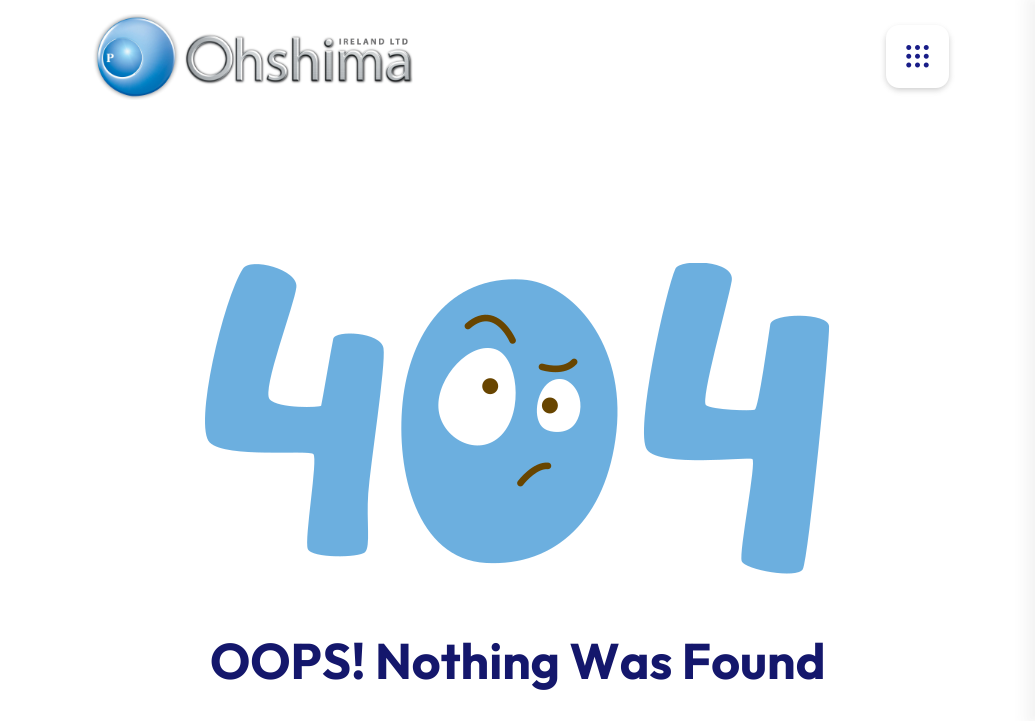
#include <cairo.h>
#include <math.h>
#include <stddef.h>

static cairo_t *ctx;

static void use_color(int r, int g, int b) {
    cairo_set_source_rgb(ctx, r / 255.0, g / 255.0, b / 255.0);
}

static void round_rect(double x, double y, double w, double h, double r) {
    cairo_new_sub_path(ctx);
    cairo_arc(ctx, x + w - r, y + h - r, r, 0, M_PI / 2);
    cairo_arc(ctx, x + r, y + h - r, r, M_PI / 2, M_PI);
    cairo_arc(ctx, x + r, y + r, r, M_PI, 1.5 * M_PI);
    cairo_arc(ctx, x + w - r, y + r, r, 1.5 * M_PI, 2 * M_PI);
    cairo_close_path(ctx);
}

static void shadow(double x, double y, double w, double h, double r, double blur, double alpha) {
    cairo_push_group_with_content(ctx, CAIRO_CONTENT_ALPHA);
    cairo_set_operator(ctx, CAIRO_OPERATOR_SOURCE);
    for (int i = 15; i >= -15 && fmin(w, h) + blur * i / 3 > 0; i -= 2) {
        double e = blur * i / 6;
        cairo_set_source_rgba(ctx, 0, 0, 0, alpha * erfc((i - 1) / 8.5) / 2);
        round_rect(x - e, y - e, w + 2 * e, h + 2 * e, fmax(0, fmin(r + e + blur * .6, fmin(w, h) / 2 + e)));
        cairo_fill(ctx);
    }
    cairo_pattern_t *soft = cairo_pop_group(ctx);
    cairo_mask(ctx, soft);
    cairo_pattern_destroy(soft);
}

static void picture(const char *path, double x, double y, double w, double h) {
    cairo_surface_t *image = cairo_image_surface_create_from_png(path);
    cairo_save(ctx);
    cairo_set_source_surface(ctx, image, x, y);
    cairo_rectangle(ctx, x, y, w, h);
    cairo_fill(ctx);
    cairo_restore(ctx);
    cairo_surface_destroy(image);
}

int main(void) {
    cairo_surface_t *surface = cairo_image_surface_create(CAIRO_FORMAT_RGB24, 1035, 721);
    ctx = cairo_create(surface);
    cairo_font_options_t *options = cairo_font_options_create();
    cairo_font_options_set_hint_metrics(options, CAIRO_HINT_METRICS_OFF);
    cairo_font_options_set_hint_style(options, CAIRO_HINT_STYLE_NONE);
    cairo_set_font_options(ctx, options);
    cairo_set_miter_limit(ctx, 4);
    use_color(255, 255, 255);
    cairo_paint(ctx);
    picture("img1.png", 93, 14, 320, 86);
    use_color(0, 0, 0);
    shadow(886, 28, 63, 62, 13, 3, 0.2);
    use_color(255, 255, 255);
    round_rect(886, 25, 63, 63, 13);
    cairo_fill(ctx);
    picture("img2.png", 906, 45, 23, 23);
    use_color(0, 0, 0);
    shadow(1028, 0, 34, 721, 0, 9, 0.06);
    picture("img3.png", 205, 263, 625, 311);
    cairo_select_font_face(ctx, "Outfit", CAIRO_FONT_SLANT_NORMAL, CAIRO_FONT_WEIGHT_BOLD);
    cairo_set_font_size(ctx, 50);
    use_color(20, 23, 108);
    cairo_move_to(ctx, 210, 679);
    cairo_show_text(ctx, "OOPS! Nothing Was Found");
    cairo_surface_write_to_png(surface, "result.png");
    cairo_font_options_destroy(options);
    cairo_destroy(ctx);
    cairo_surface_destroy(surface);
    return 0;
}
